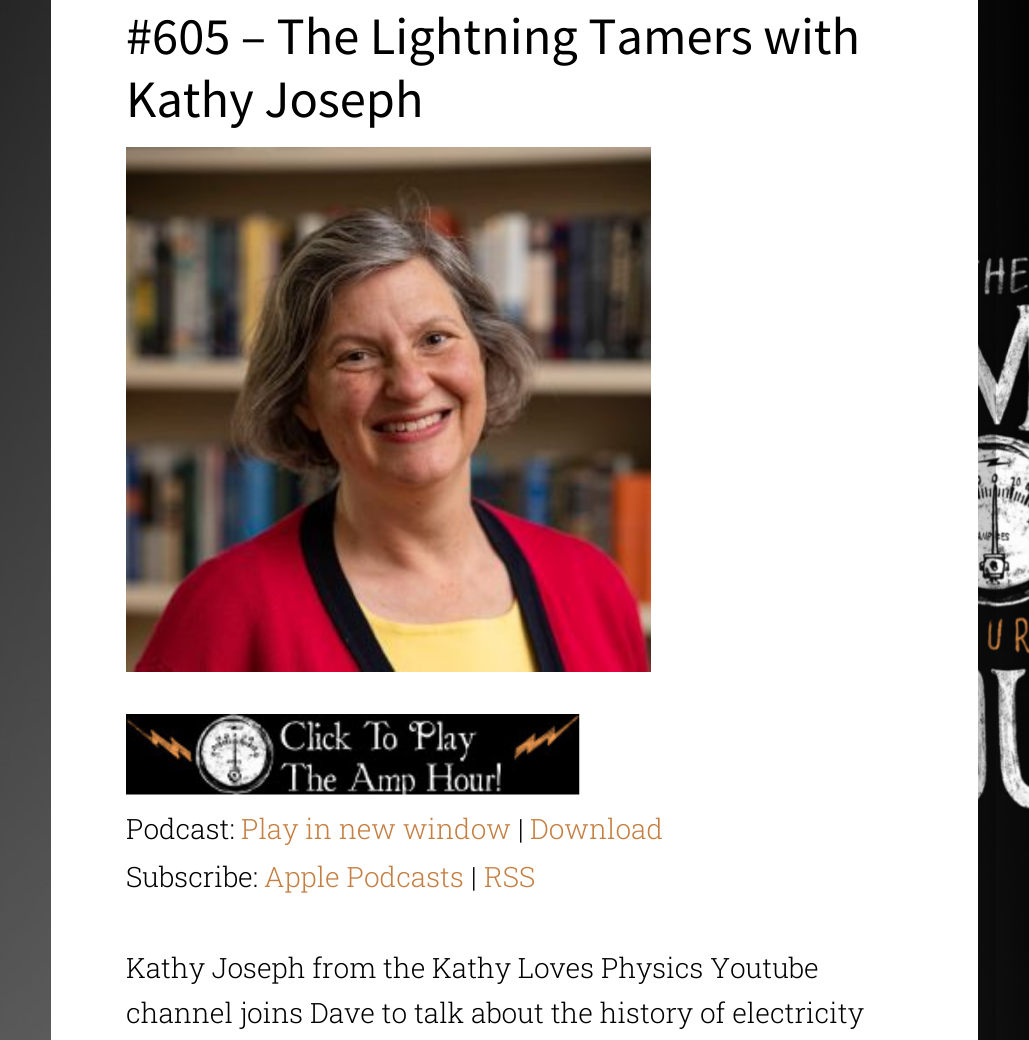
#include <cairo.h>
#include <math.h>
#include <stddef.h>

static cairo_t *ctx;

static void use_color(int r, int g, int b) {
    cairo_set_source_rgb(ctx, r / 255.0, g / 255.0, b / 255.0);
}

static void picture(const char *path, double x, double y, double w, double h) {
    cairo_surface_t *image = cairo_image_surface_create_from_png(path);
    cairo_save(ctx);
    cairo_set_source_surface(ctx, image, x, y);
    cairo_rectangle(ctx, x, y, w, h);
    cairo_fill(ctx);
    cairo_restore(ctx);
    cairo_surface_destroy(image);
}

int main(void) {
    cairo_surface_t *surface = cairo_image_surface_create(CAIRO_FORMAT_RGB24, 1029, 1040);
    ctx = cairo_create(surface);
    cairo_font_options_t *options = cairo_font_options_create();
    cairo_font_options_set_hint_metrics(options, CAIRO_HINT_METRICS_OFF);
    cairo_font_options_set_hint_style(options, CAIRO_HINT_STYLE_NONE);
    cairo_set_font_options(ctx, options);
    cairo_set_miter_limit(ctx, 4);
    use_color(255, 255, 255);
    cairo_paint(ctx);
    picture("img1.png", 0, 0, 1029, 1040);
    cairo_set_source_rgba(ctx, 0, 0, 0, 0.2);
    cairo_new_path(ctx);
    cairo_move_to(ctx, 68, 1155);
    cairo_line_to(ctx, 68, 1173);
    cairo_line_to(ctx, 996, 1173);
    cairo_line_to(ctx, 996, -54);
    cairo_line_to(ctx, 978, -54);
    cairo_line_to(ctx, 978, 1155);
    cairo_close_path(ctx);
    cairo_fill(ctx);
    use_color(255, 255, 255);
    cairo_rectangle(ctx, 51, 0, 927, 1040);
    cairo_fill(ctx);
    cairo_select_font_face(ctx, "Source Sans Pro", CAIRO_FONT_SLANT_NORMAL, CAIRO_FONT_WEIGHT_NORMAL);
    cairo_set_font_size(ctx, 52.5);
    use_color(0, 0, 0);
    cairo_move_to(ctx, 126, 54);
    cairo_show_text(ctx, "#605 – The Lightning Tamers with");
    cairo_move_to(ctx, 126, 117);
    cairo_show_text(ctx, "Kathy Joseph");
    picture("img2.png", 126, 147, 525, 525);
    picture("img3.png", 126, 714, 454, 81);
    cairo_select_font_face(ctx, "Roboto Slab Light", CAIRO_FONT_SLANT_NORMAL, CAIRO_FONT_WEIGHT_NORMAL);
    cairo_set_font_size(ctx, 28);
    cairo_move_to(ctx, 126, 839);
    cairo_show_text(ctx, "Podcast:");
    use_color(197, 127, 66);
    cairo_move_to(ctx, 241, 839);
    cairo_show_text(ctx, "Play in new window");
    use_color(0, 0, 0);
    cairo_move_to(ctx, 518, 839);
    cairo_show_text(ctx, "|");
    use_color(197, 127, 66);
    cairo_move_to(ctx, 530, 839);
    cairo_show_text(ctx, "Download");
    use_color(0, 0, 0);
    cairo_move_to(ctx, 126, 887);
    cairo_show_text(ctx, "Subscribe:");
    use_color(197, 127, 66);
    cairo_move_to(ctx, 264, 887);
    cairo_show_text(ctx, "Apple Podcasts");
    use_color(0, 0, 0);
    cairo_move_to(ctx, 471, 887);
    cairo_show_text(ctx, "|");
    use_color(197, 127, 66);
    cairo_move_to(ctx, 484, 887);
    cairo_show_text(ctx, "RSS");
    use_color(0, 0, 0);
    cairo_move_to(ctx, 126, 978);
    cairo_show_text(ctx, "Kathy Joseph from the Kathy Loves Physics Youtube");
    cairo_move_to(ctx, 126, 1023);
    cairo_show_text(ctx, "channel joins Dave to talk about the history of electricity");
    cairo_surface_write_to_png(surface, "result.png");
    cairo_font_options_destroy(options);
    cairo_destroy(ctx);
    cairo_surface_destroy(surface);
    return 0;
}
